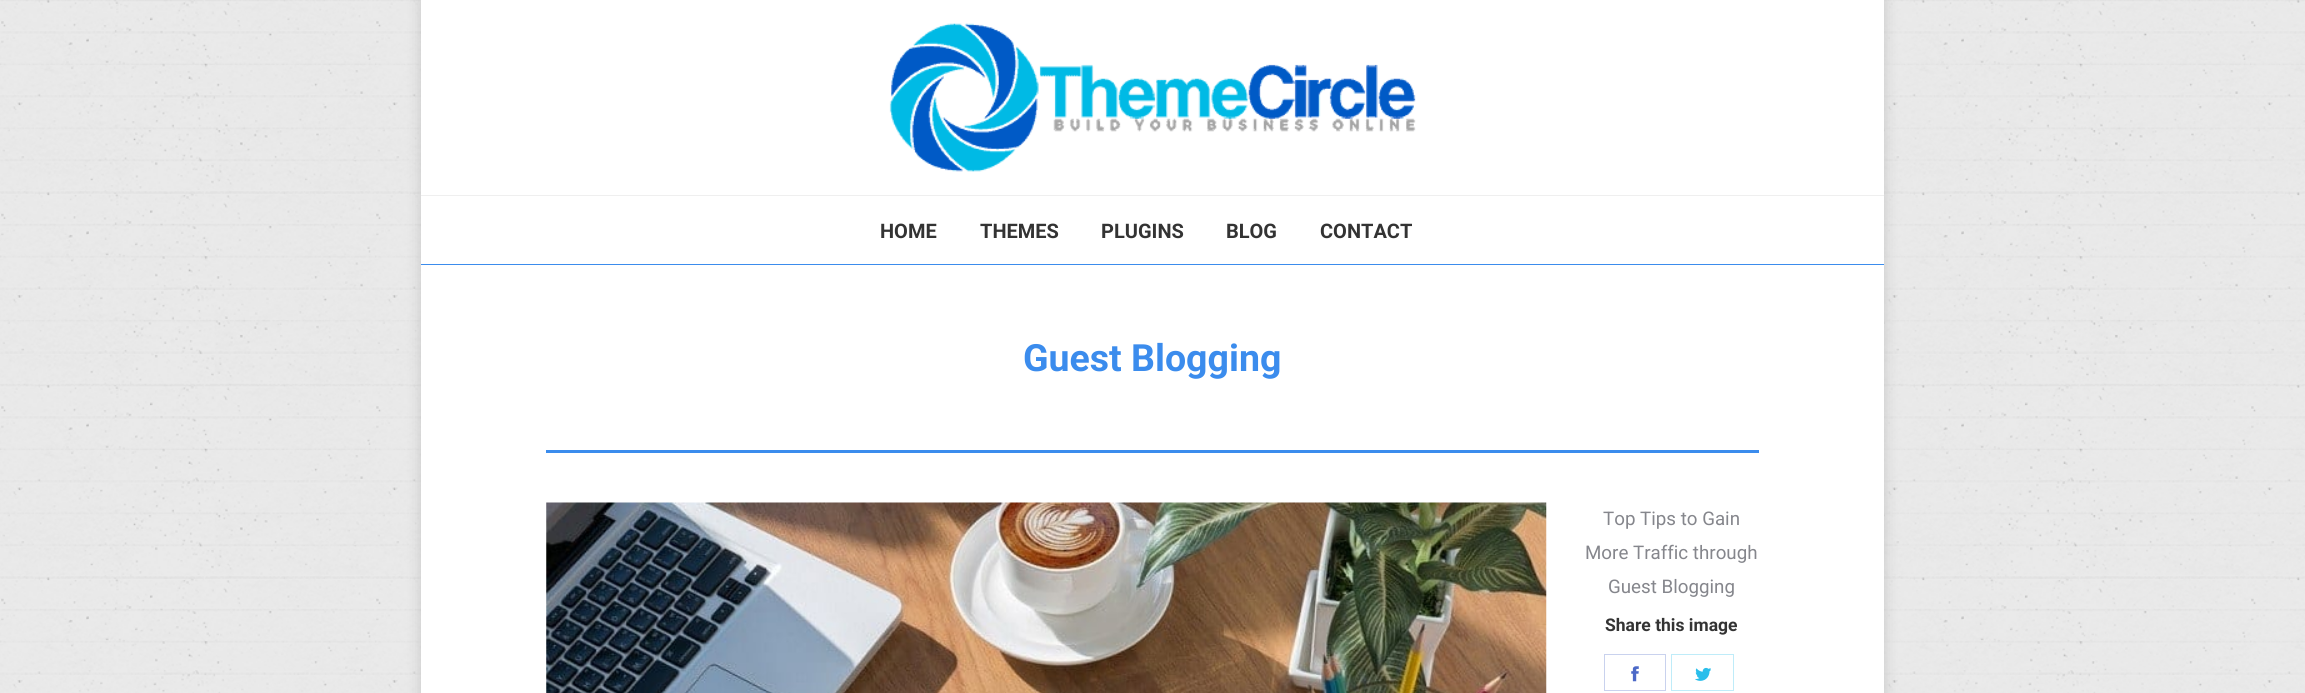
#include <cairo.h>
#include <math.h>
#include <stddef.h>

static cairo_t *ctx;

static void use_color(int r, int g, int b) {
    cairo_set_source_rgb(ctx, r / 255.0, g / 255.0, b / 255.0);
}

static void round_rect(double x, double y, double w, double h, double r) {
    cairo_new_sub_path(ctx);
    cairo_arc(ctx, x + w - r, y + h - r, r, 0, M_PI / 2);
    cairo_arc(ctx, x + r, y + h - r, r, M_PI / 2, M_PI);
    cairo_arc(ctx, x + r, y + r, r, M_PI, 1.5 * M_PI);
    cairo_arc(ctx, x + w - r, y + r, r, 1.5 * M_PI, 2 * M_PI);
    cairo_close_path(ctx);
}

static void shadow(double x, double y, double w, double h, double r, double blur, double alpha) {
    cairo_push_group_with_content(ctx, CAIRO_CONTENT_ALPHA);
    cairo_set_operator(ctx, CAIRO_OPERATOR_SOURCE);
    for (int i = 15; i >= -15 && fmin(w, h) + blur * i / 3 > 0; i -= 2) {
        double e = blur * i / 6;
        cairo_set_source_rgba(ctx, 0, 0, 0, alpha * erfc((i - 1) / 8.5) / 2);
        round_rect(x - e, y - e, w + 2 * e, h + 2 * e, fmax(0, fmin(r + e + blur * .6, fmin(w, h) / 2 + e)));
        cairo_fill(ctx);
    }
    cairo_pattern_t *soft = cairo_pop_group(ctx);
    cairo_mask(ctx, soft);
    cairo_pattern_destroy(soft);
}

static void picture(const char *path, double x, double y, double w, double h) {
    cairo_surface_t *image = cairo_image_surface_create_from_png(path);
    cairo_save(ctx);
    cairo_set_source_surface(ctx, image, x, y);
    cairo_rectangle(ctx, x, y, w, h);
    cairo_fill(ctx);
    cairo_restore(ctx);
    cairo_surface_destroy(image);
}

int main(void) {
    cairo_surface_t *surface = cairo_image_surface_create(CAIRO_FORMAT_RGB24, 2305, 693);
    ctx = cairo_create(surface);
    cairo_font_options_t *options = cairo_font_options_create();
    cairo_font_options_set_hint_metrics(options, CAIRO_HINT_METRICS_OFF);
    cairo_font_options_set_hint_style(options, CAIRO_HINT_STYLE_NONE);
    cairo_set_font_options(ctx, options);
    cairo_set_miter_limit(ctx, 4);
    use_color(255, 255, 255);
    cairo_paint(ctx);
    picture("img1.png", 0, 0, 2305, 693);
    use_color(0, 0, 0);
    shadow(421, 0, 1463, 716, 0, 7.5, 0.15);
    use_color(255, 255, 255);
    cairo_rectangle(ctx, 421, 0, 1463, 693);
    cairo_fill(ctx);
    use_color(59, 140, 237);
    cairo_rectangle(ctx, 421, 264, 1463, 1);
    cairo_fill(ctx);
    picture("img2.png", 889, 23, 527, 149);
    use_color(239, 239, 239);
    cairo_rectangle(ctx, 421, 195, 1463, 1);
    cairo_fill(ctx);
    cairo_select_font_face(ctx, "Roboto", CAIRO_FONT_SLANT_NORMAL, CAIRO_FONT_WEIGHT_BOLD);
    cairo_set_font_size(ctx, 20);
    use_color(51, 51, 51);
    cairo_move_to(ctx, 880, 238);
    cairo_show_text(ctx, "HOME");
    cairo_move_to(ctx, 980, 238);
    cairo_show_text(ctx, "THEMES");
    cairo_move_to(ctx, 1101, 238);
    cairo_show_text(ctx, "PLUGINS");
    cairo_move_to(ctx, 1226, 238);
    cairo_show_text(ctx, "BLOG");
    cairo_move_to(ctx, 1320, 238);
    cairo_show_text(ctx, "CONTACT");
    cairo_set_font_size(ctx, 37.5);
    use_color(59, 140, 237);
    cairo_move_to(ctx, 1023, 371);
    cairo_show_text(ctx, "Guest Blogging");
    cairo_rectangle(ctx, 546, 450, 1213, 3);
    cairo_fill(ctx);
    picture("img3.png", 546, 502, 1001, 191);
    cairo_select_font_face(ctx, "Roboto", CAIRO_FONT_SLANT_NORMAL, CAIRO_FONT_WEIGHT_NORMAL);
    cairo_set_font_size(ctx, 18.75);
    use_color(133, 134, 140);
    cairo_move_to(ctx, 1603, 525);
    cairo_show_text(ctx, "Top Tips to Gain");
    cairo_move_to(ctx, 1585, 559);
    cairo_show_text(ctx, "More Traffic through");
    cairo_move_to(ctx, 1608, 593);
    cairo_show_text(ctx, "Guest Blogging");
    cairo_select_font_face(ctx, "Roboto", CAIRO_FONT_SLANT_NORMAL, CAIRO_FONT_WEIGHT_BOLD);
    cairo_set_font_size(ctx, 17.5);
    use_color(51, 51, 51);
    cairo_move_to(ctx, 1605, 631);
    cairo_show_text(ctx, "Share this image");
    cairo_rectangle(ctx, 1604.5, 654.5, 61, 36);
    use_color(201, 210, 238);
    cairo_set_line_width(ctx, 1);
    cairo_stroke(ctx);
    picture("img4.png", 1631, 666, 8, 16);
    cairo_rectangle(ctx, 1671.5, 654.5, 62, 36);
    use_color(191, 236, 249);
    cairo_stroke(ctx);
    picture("img5.png", 1695, 667, 16, 14);
    cairo_surface_write_to_png(surface, "result.png");
    cairo_font_options_destroy(options);
    cairo_destroy(ctx);
    cairo_surface_destroy(surface);
    return 0;
}
